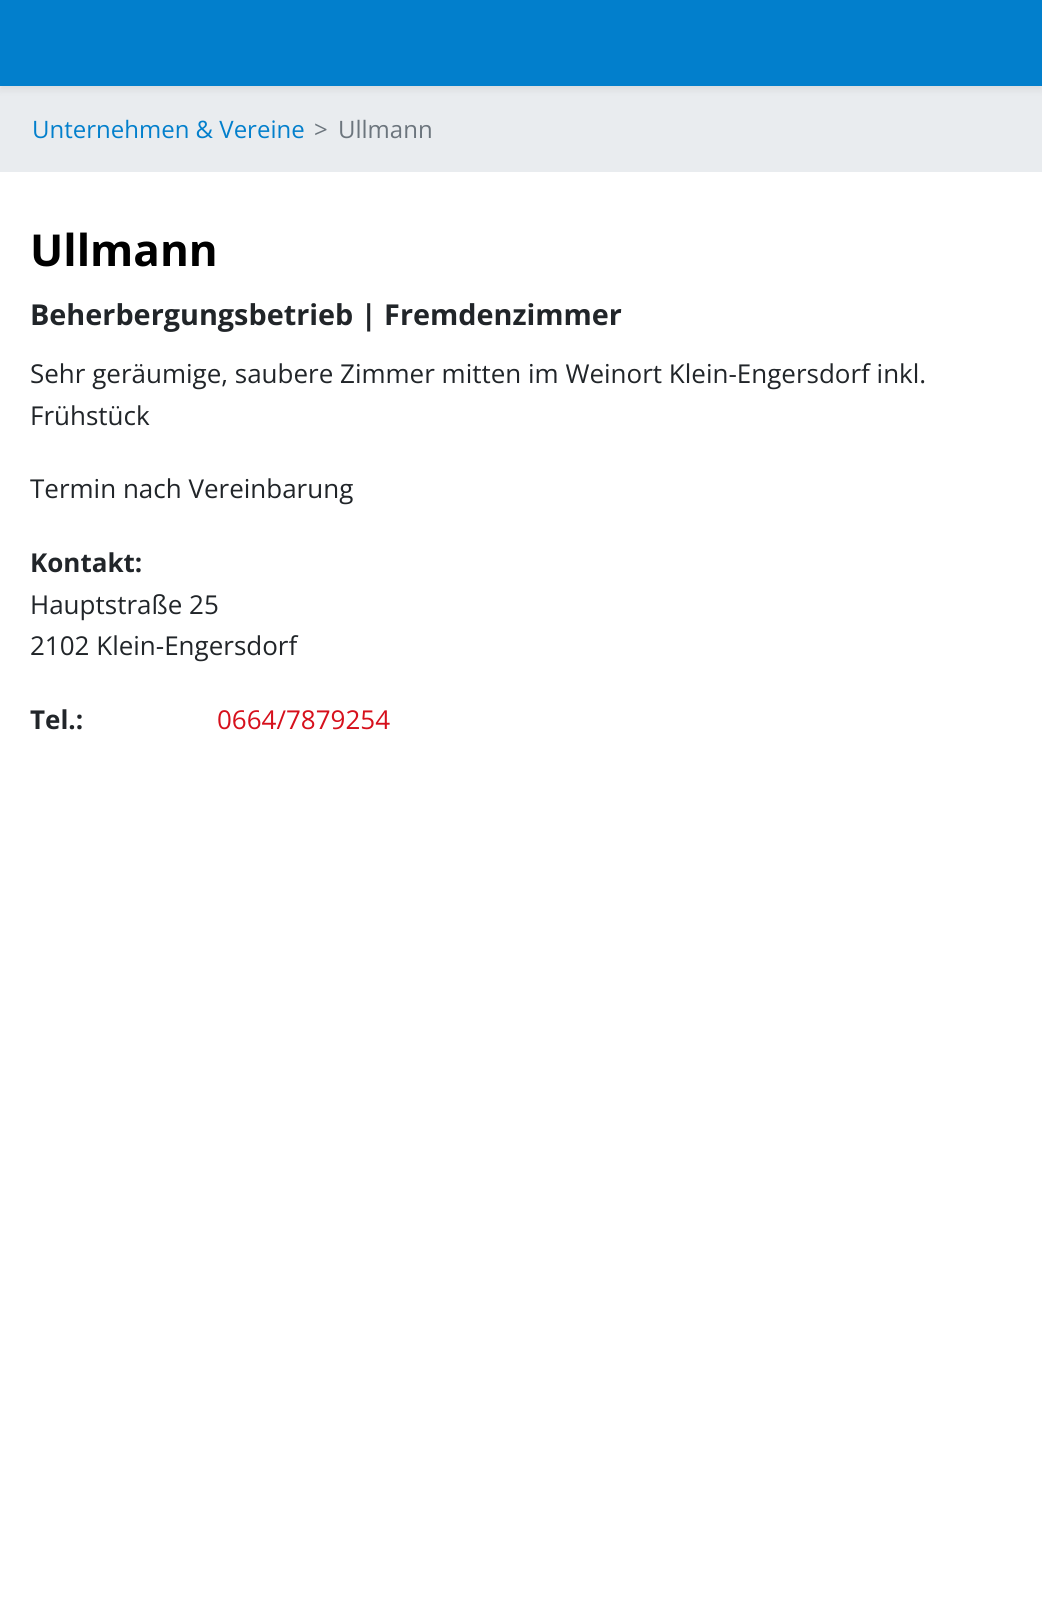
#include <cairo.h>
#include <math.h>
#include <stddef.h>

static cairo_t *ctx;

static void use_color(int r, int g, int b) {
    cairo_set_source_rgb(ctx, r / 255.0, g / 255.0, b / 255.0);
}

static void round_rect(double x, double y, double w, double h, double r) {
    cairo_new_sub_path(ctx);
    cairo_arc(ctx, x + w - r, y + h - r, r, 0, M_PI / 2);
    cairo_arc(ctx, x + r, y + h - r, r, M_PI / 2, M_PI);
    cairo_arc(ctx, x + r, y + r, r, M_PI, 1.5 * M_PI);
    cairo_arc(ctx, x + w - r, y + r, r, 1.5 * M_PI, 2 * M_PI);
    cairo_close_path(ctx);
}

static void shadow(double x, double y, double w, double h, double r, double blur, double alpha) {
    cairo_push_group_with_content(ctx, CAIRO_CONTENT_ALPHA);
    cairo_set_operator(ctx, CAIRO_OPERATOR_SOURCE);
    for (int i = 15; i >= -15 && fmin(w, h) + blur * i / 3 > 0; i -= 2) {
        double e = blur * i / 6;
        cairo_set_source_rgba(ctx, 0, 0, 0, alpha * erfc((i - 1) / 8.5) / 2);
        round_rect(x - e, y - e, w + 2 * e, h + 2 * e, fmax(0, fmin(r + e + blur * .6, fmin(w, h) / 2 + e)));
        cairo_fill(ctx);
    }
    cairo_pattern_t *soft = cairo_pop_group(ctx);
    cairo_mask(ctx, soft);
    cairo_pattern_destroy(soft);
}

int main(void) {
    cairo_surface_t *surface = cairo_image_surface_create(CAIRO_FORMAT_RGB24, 1042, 1599);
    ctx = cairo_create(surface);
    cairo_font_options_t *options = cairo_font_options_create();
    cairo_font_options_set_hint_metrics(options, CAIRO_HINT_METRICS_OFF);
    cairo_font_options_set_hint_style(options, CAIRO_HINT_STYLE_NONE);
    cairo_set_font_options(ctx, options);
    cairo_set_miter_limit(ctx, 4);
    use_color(255, 255, 255);
    cairo_paint(ctx);
    use_color(233, 236, 239);
    cairo_rectangle(ctx, 0, 86, 1042, 86);
    cairo_fill(ctx);
    use_color(0, 0, 0);
    shadow(0, 4, 1042, 86, 0, 4, 0.07);
    use_color(2, 127, 204);
    cairo_rectangle(ctx, 0, 0, 1042, 86);
    cairo_fill(ctx);
    cairo_select_font_face(ctx, "Open Sans", CAIRO_FONT_SLANT_NORMAL, CAIRO_FONT_WEIGHT_NORMAL);
    cairo_set_font_size(ctx, 24);
    cairo_move_to(ctx, 32, 138);
    cairo_show_text(ctx, "Unternehmen & Vereine");
    use_color(108, 117, 125);
    cairo_move_to(ctx, 314, 138);
    cairo_show_text(ctx, ">");
    cairo_move_to(ctx, 338, 138);
    cairo_show_text(ctx, "Ullmann");
    cairo_select_font_face(ctx, "Open Sans", CAIRO_FONT_SLANT_NORMAL, CAIRO_FONT_WEIGHT_BOLD);
    cairo_set_font_size(ctx, 44);
    use_color(0, 0, 0);
    cairo_move_to(ctx, 30, 266);
    cairo_show_text(ctx, "Ullmann");
    cairo_set_font_size(ctx, 28.8);
    use_color(33, 37, 41);
    cairo_move_to(ctx, 30, 325);
    cairo_show_text(ctx, "Beherbergungsbetrieb | Fremdenzimmer");
    cairo_select_font_face(ctx, "Open Sans", CAIRO_FONT_SLANT_NORMAL, CAIRO_FONT_WEIGHT_NORMAL);
    cairo_set_font_size(ctx, 26);
    cairo_move_to(ctx, 30, 383);
    cairo_show_text(ctx, "Sehr geräumige, saubere Zimmer mitten im Weinort Klein-Engersdorf inkl.");
    cairo_move_to(ctx, 30, 425);
    cairo_show_text(ctx, "Frühstück");
    cairo_move_to(ctx, 30, 498);
    cairo_show_text(ctx, "Termin nach Vereinbarung");
    cairo_select_font_face(ctx, "Open Sans", CAIRO_FONT_SLANT_NORMAL, CAIRO_FONT_WEIGHT_BOLD);
    cairo_move_to(ctx, 30, 572);
    cairo_show_text(ctx, "Kontakt:");
    cairo_select_font_face(ctx, "Open Sans", CAIRO_FONT_SLANT_NORMAL, CAIRO_FONT_WEIGHT_NORMAL);
    cairo_move_to(ctx, 30, 614);
    cairo_show_text(ctx, "Hauptstraße 25");
    cairo_move_to(ctx, 30, 655);
    cairo_show_text(ctx, "2102 Klein-Engersdorf");
    cairo_select_font_face(ctx, "Open Sans", CAIRO_FONT_SLANT_NORMAL, CAIRO_FONT_WEIGHT_BOLD);
    cairo_move_to(ctx, 30, 729);
    cairo_show_text(ctx, "Tel.:");
    cairo_select_font_face(ctx, "Open Sans", CAIRO_FONT_SLANT_NORMAL, CAIRO_FONT_WEIGHT_NORMAL);
    use_color(214, 16, 28);
    cairo_move_to(ctx, 217, 729);
    cairo_show_text(ctx, "0664/7879254");
    cairo_surface_write_to_png(surface, "result.png");
    cairo_font_options_destroy(options);
    cairo_destroy(ctx);
    cairo_surface_destroy(surface);
    return 0;
}
